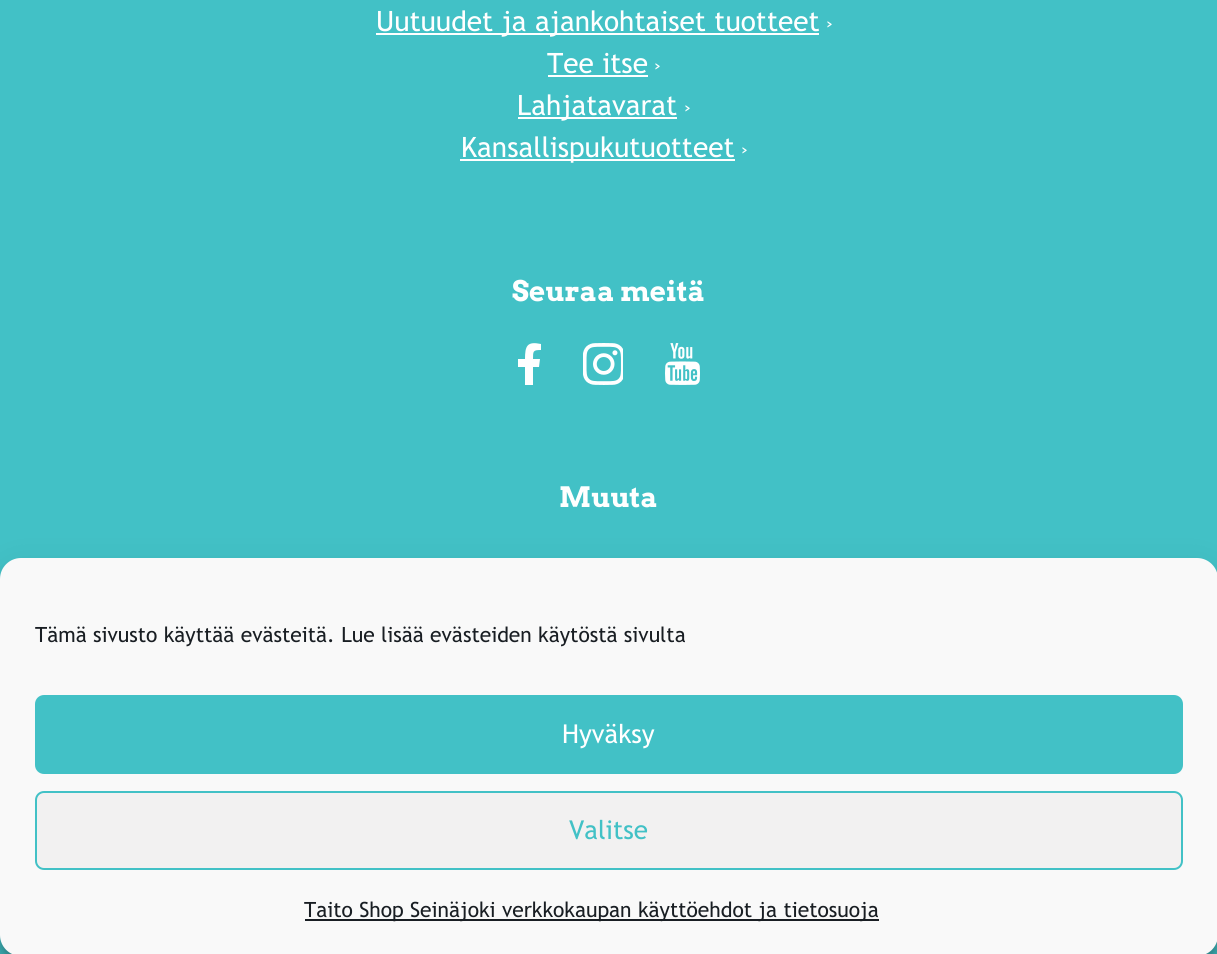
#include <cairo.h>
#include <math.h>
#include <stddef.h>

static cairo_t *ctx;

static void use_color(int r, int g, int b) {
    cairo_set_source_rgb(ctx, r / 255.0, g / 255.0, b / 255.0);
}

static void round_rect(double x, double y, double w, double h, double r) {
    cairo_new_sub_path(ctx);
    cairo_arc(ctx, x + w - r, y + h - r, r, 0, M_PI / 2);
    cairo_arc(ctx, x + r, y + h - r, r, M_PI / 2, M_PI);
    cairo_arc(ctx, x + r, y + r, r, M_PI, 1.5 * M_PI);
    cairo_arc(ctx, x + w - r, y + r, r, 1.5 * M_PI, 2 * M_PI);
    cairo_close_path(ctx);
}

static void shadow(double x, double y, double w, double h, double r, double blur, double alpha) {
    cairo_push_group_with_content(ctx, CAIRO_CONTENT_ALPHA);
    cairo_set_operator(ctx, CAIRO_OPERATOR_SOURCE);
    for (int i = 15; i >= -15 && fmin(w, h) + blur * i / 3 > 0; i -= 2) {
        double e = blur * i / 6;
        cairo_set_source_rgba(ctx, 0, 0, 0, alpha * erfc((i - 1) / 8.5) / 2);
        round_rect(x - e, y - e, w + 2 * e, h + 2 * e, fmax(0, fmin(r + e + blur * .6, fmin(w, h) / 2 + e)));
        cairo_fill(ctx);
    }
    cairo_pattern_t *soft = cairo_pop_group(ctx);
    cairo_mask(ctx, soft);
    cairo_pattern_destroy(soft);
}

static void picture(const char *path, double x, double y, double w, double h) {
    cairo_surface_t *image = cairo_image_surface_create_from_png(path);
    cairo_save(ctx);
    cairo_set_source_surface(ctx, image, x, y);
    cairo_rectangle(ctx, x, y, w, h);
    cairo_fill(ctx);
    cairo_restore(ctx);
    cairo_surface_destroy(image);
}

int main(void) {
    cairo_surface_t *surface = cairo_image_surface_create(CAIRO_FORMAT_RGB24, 1217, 954);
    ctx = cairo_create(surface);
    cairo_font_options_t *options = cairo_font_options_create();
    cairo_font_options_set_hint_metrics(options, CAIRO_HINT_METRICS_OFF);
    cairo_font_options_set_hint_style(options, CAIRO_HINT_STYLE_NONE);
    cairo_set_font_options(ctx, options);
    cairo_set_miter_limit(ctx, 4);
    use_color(66, 193, 198);
    cairo_paint(ctx);
    use_color(255, 255, 255);
    cairo_rectangle(ctx, 376, 33, 443, 2);
    cairo_fill(ctx);
    cairo_select_font_face(ctx, "Trebuchet MS", CAIRO_FONT_SLANT_NORMAL, CAIRO_FONT_WEIGHT_NORMAL);
    cairo_set_font_size(ctx, 28);
    cairo_move_to(ctx, 376, 31);
    cairo_show_text(ctx, "Uutuudet ja ajankohtaiset tuotteet");
    cairo_set_font_size(ctx, 24);
    cairo_move_to(ctx, 825, 31);
    cairo_show_text(ctx, "›");
    cairo_set_font_size(ctx, 28);
    cairo_move_to(ctx, 547, 73);
    cairo_show_text(ctx, "Tee itse");
    cairo_rectangle(ctx, 548, 75, 100, 2);
    cairo_fill(ctx);
    cairo_set_font_size(ctx, 24);
    cairo_move_to(ctx, 653, 73);
    cairo_show_text(ctx, "›");
    cairo_rectangle(ctx, 518, 117, 159, 2);
    cairo_fill(ctx);
    cairo_set_font_size(ctx, 28);
    cairo_move_to(ctx, 517, 115);
    cairo_show_text(ctx, "Lahjatavarat");
    cairo_set_font_size(ctx, 24);
    cairo_move_to(ctx, 683, 115);
    cairo_show_text(ctx, "›");
    cairo_rectangle(ctx, 460, 159, 275, 2);
    cairo_fill(ctx);
    cairo_set_font_size(ctx, 28);
    cairo_move_to(ctx, 461, 157);
    cairo_show_text(ctx, "Kansallispukutuotteet");
    cairo_set_font_size(ctx, 24);
    cairo_move_to(ctx, 740, 157);
    cairo_show_text(ctx, "›");
    cairo_select_font_face(ctx, "Arvo", CAIRO_FONT_SLANT_NORMAL, CAIRO_FONT_WEIGHT_BOLD);
    cairo_set_font_size(ctx, 28);
    cairo_move_to(ctx, 512, 301);
    cairo_show_text(ctx, "Seuraa meitä");
    cairo_new_path(ctx);
    cairo_move_to(ctx, 539, 367);
    cairo_line_to(ctx, 540, 359);
    cairo_line_to(ctx, 533, 359);
    cairo_curve_to(ctx, 533, 351, 533, 350, 541, 350);
    cairo_line_to(ctx, 541, 344);
    cairo_curve_to(ctx, 527, 341, 525, 346, 525, 359);
    cairo_line_to(ctx, 518, 359);
    cairo_line_to(ctx, 518, 367);
    cairo_line_to(ctx, 525, 367);
    cairo_line_to(ctx, 525, 385);
    cairo_line_to(ctx, 533, 385);
    cairo_line_to(ctx, 533, 367);
    cairo_close_path(ctx);
    cairo_fill(ctx);
    picture("img1.png", 583, 343, 40, 42);
    picture("img2.png", 665, 343, 35, 42);
    cairo_move_to(ctx, 559, 507);
    cairo_show_text(ctx, "Muuta");
    use_color(0, 0, 0);
    shadow(0, 569, 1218, 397, 21, 5, 0.23);
    shadow(0, 576, 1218, 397, 21, 17.5, 0.19);
    use_color(249, 249, 249);
    round_rect(0, 558, 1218, 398, 21);
    cairo_fill(ctx);
    cairo_select_font_face(ctx, "Trebuchet MS", CAIRO_FONT_SLANT_NORMAL, CAIRO_FONT_WEIGHT_NORMAL);
    cairo_set_font_size(ctx, 21);
    use_color(25, 30, 35);
    cairo_move_to(ctx, 35, 642);
    cairo_show_text(ctx, "Tämä sivusto käyttää evästeitä. Lue lisää evästeiden käytöstä sivulta");
    use_color(66, 193, 198);
    round_rect(36, 696, 1146, 77, 8);
    cairo_fill_preserve(ctx);
    cairo_stroke(ctx);
    cairo_set_font_size(ctx, 26);
    use_color(255, 255, 255);
    cairo_move_to(ctx, 562, 743);
    cairo_show_text(ctx, "Hyväksy");
    use_color(242, 241, 241);
    round_rect(36, 792, 1146, 77, 8);
    cairo_fill_preserve(ctx);
    use_color(66, 193, 198);
    cairo_stroke(ctx);
    cairo_move_to(ctx, 569, 839);
    cairo_show_text(ctx, "Valitse");
    use_color(25, 30, 35);
    cairo_rectangle(ctx, 305, 919, 574, 2);
    cairo_fill(ctx);
    cairo_set_font_size(ctx, 21);
    cairo_move_to(ctx, 304, 917);
    cairo_show_text(ctx, "Taito Shop Seinäjoki verkkokaupan käyttöehdot ja tietosuoja");
    cairo_surface_write_to_png(surface, "result.png");
    cairo_font_options_destroy(options);
    cairo_destroy(ctx);
    cairo_surface_destroy(surface);
    return 0;
}
